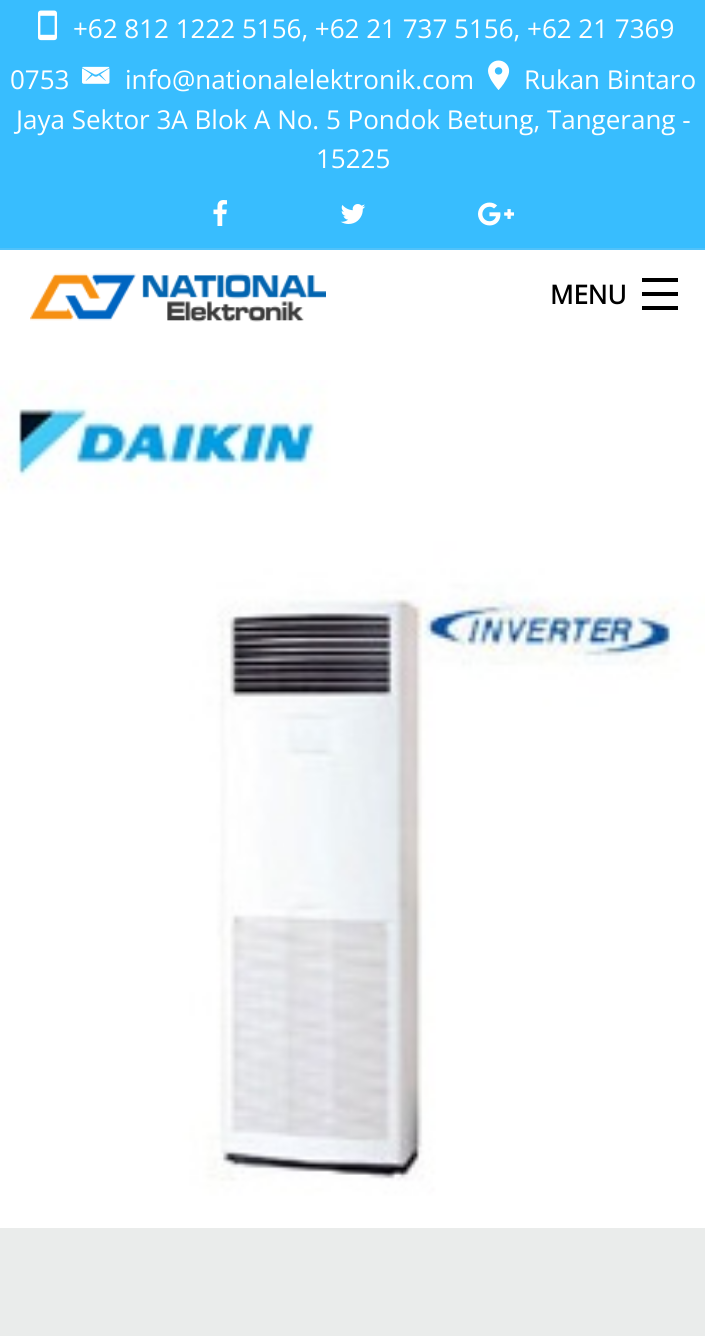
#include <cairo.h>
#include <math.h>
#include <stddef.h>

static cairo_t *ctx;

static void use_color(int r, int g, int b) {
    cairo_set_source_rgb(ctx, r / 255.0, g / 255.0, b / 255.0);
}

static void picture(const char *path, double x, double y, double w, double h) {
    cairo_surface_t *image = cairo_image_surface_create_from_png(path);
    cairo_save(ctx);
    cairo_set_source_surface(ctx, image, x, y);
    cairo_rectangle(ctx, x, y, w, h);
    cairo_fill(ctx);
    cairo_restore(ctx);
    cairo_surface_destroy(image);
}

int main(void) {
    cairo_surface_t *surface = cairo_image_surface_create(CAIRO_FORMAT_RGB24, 705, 1336);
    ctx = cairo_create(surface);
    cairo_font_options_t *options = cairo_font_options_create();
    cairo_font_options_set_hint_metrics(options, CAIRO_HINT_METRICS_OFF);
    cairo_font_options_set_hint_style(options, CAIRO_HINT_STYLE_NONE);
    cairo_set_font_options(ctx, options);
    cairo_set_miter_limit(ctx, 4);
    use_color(255, 255, 255);
    cairo_paint(ctx);
    use_color(56, 189, 254);
    cairo_rectangle(ctx, 0, 0, 705, 248);
    cairo_fill(ctx);
    use_color(81, 194, 250);
    cairo_rectangle(ctx, 0, 248, 705, 2);
    cairo_fill(ctx);
    picture("img1.png", 38, 10, 19, 31);
    cairo_select_font_face(ctx, "Open Sans", CAIRO_FONT_SLANT_NORMAL, CAIRO_FONT_WEIGHT_NORMAL);
    cairo_set_font_size(ctx, 26);
    use_color(255, 255, 255);
    cairo_move_to(ctx, 73, 38);
    cairo_show_text(ctx, "+62 812 1222 5156, +62 21 737 5156, +62 21 7369");
    cairo_move_to(ctx, 10, 89);
    cairo_show_text(ctx, "0753");
    picture("img2.png", 82, 66, 28, 18);
    cairo_move_to(ctx, 125, 89);
    cairo_show_text(ctx, "info@nationalelektronik.com");
    picture("img3.png", 488, 60, 22, 30);
    cairo_move_to(ctx, 524, 89);
    cairo_show_text(ctx, "Rukan Bintaro");
    cairo_move_to(ctx, 16, 129);
    cairo_show_text(ctx, "Jaya Sektor 3A Blok A No. 5 Pondok Betung, Tangerang -");
    cairo_move_to(ctx, 316, 168);
    cairo_show_text(ctx, "15225");
    picture("img4.png", 213, 200, 14, 26);
    picture("img5.png", 340, 204, 26, 20);
    picture("img6.png", 478, 202, 36, 24);
    picture("img7.png", 30, 273, 296, 49);
    cairo_select_font_face(ctx, "Open Sans", CAIRO_FONT_SLANT_NORMAL, CAIRO_FONT_WEIGHT_BOLD);
    use_color(0, 0, 0);
    cairo_move_to(ctx, 550, 304);
    cairo_show_text(ctx, "MENU");
    cairo_rectangle(ctx, 642, 306, 36, 4);
    cairo_fill(ctx);
    cairo_rectangle(ctx, 642, 292, 36, 4);
    cairo_fill(ctx);
    cairo_rectangle(ctx, 642, 278, 36, 4);
    cairo_fill(ctx);
    use_color(234, 236, 235);
    cairo_rectangle(ctx, 0, 1228, 705, 108);
    cairo_fill(ctx);
    picture("img8.png", 0, 380, 705, 848);
    cairo_surface_write_to_png(surface, "result.png");
    cairo_font_options_destroy(options);
    cairo_destroy(ctx);
    cairo_surface_destroy(surface);
    return 0;
}
